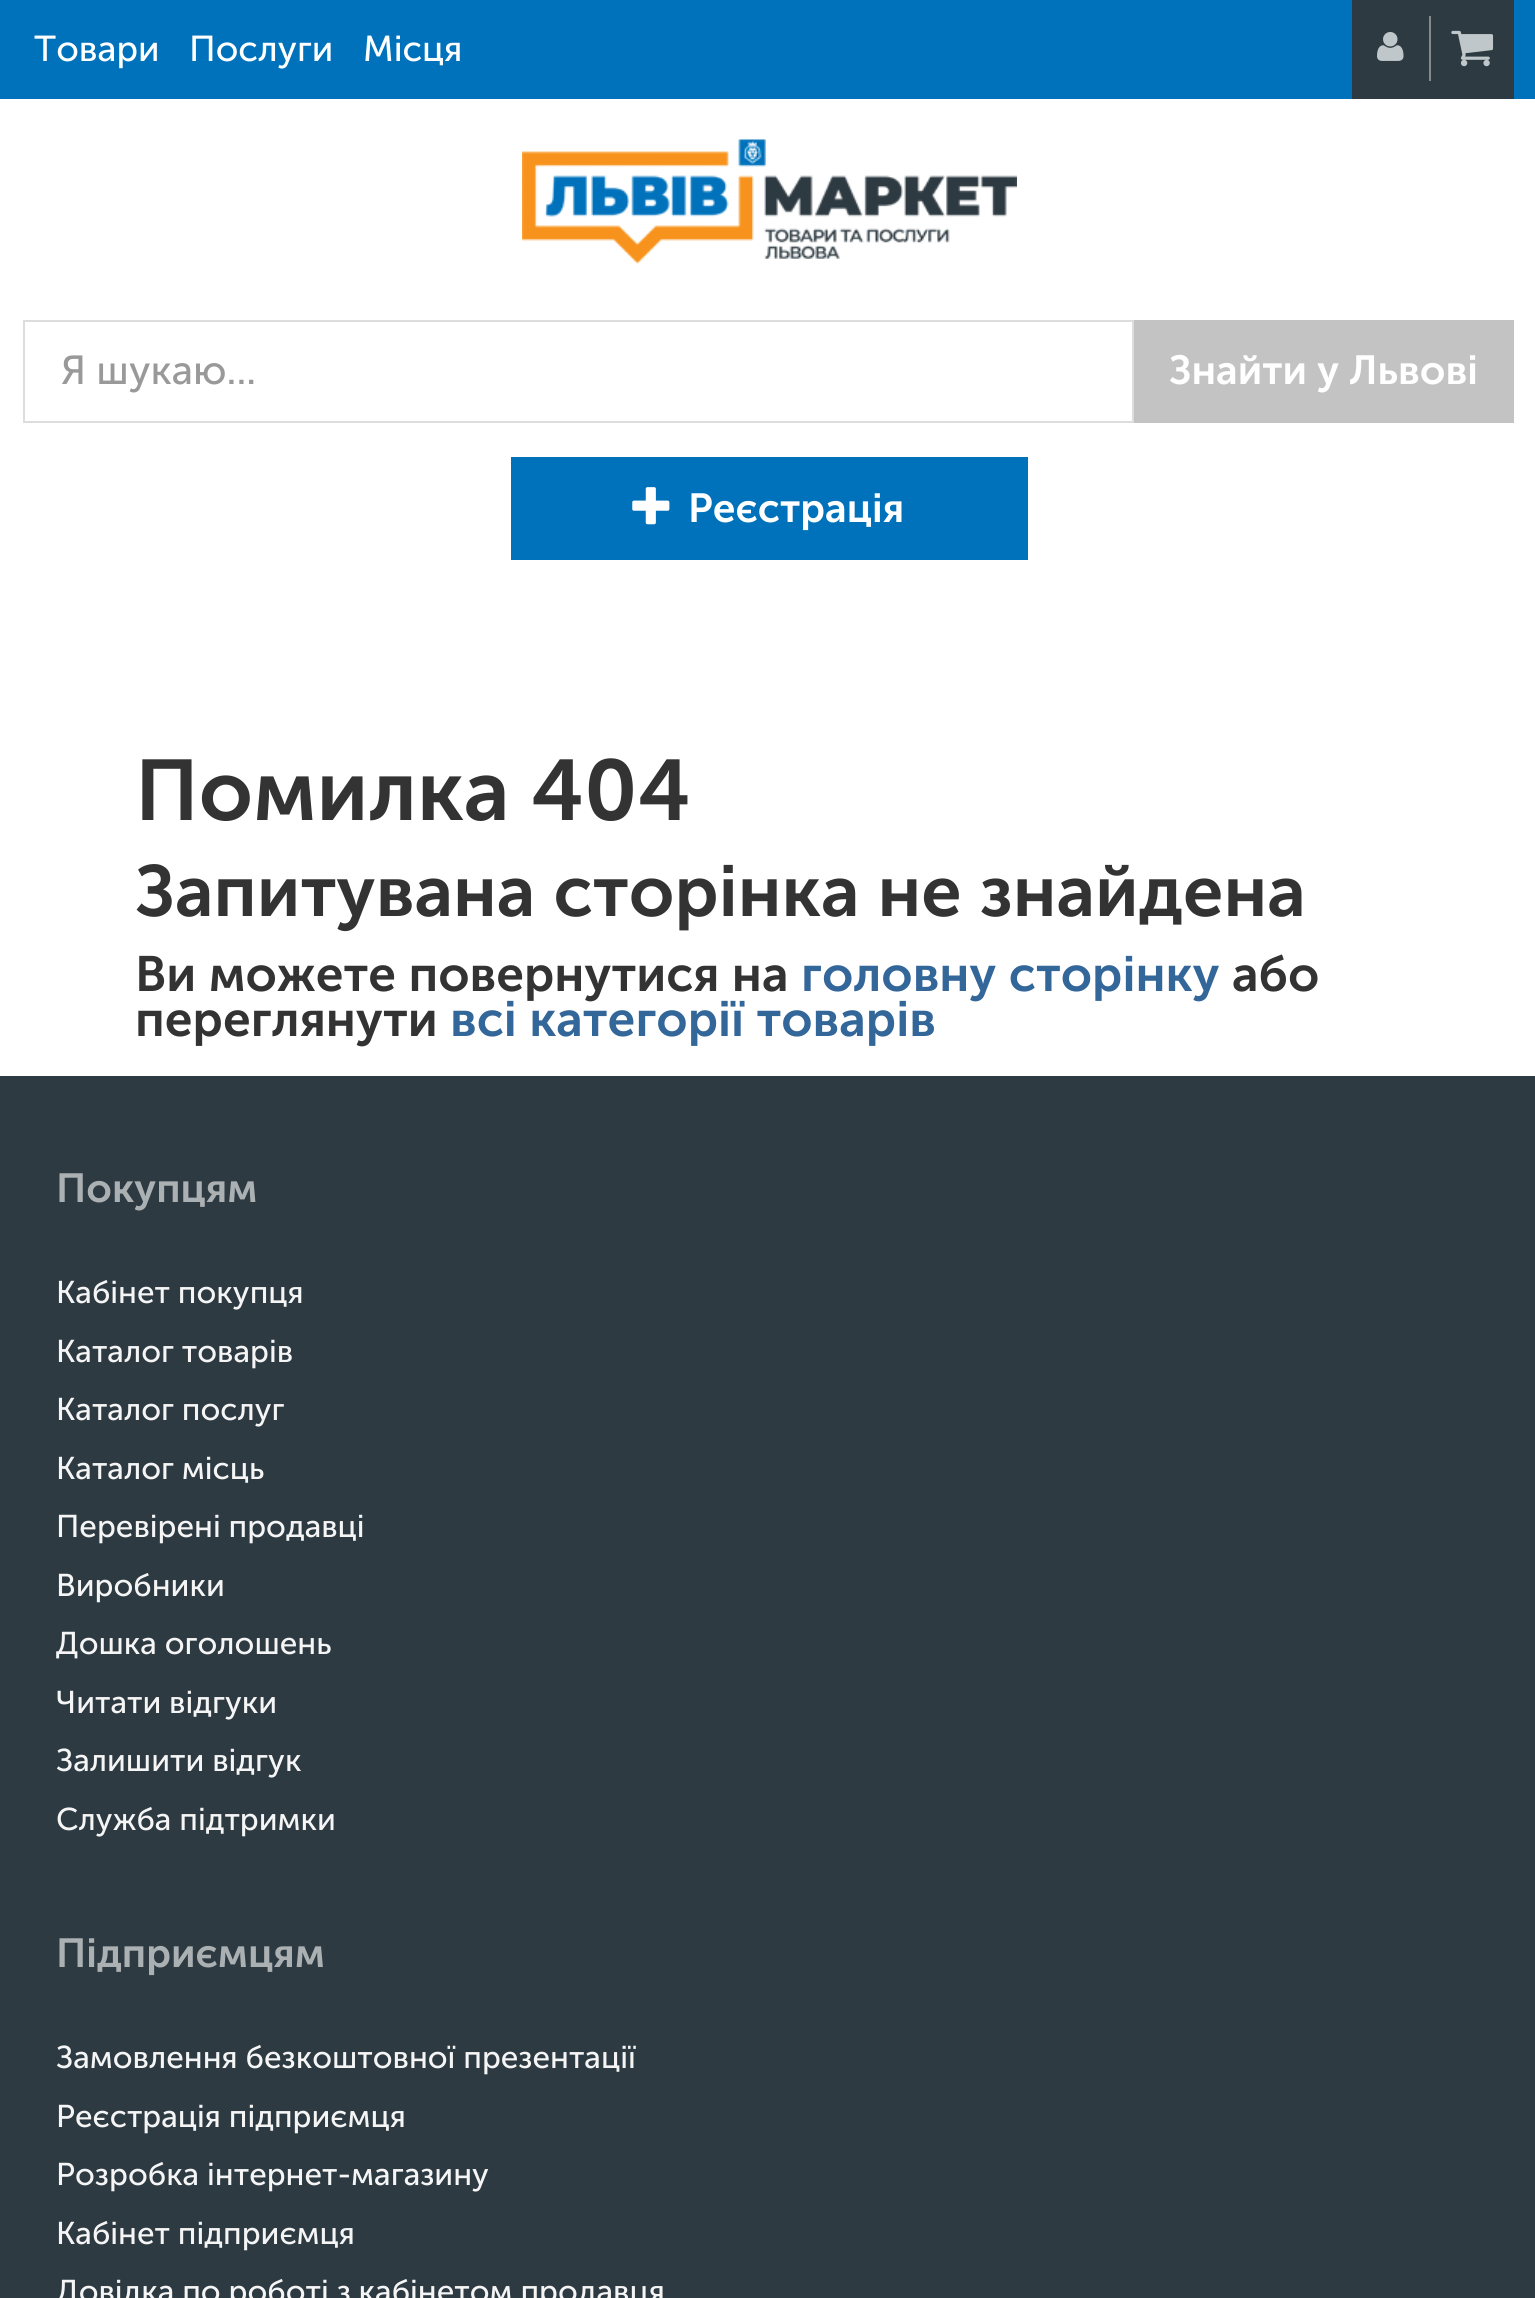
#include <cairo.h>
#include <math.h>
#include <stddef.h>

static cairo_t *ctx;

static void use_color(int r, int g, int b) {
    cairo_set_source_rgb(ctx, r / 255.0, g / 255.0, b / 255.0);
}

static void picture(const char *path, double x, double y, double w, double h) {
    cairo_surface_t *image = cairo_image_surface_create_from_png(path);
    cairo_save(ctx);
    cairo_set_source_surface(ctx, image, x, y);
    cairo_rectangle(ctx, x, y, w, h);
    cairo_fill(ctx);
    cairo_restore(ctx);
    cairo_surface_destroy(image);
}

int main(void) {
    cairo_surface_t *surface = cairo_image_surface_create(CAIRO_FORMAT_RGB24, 1535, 2298);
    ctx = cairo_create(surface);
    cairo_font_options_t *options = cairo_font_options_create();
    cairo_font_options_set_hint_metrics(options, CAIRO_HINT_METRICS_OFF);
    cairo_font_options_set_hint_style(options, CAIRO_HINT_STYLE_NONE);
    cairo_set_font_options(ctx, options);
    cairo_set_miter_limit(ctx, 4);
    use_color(255, 255, 255);
    cairo_paint(ctx);
    use_color(0, 114, 188);
    cairo_rectangle(ctx, 0, 0, 1535, 99);
    cairo_fill(ctx);
    cairo_select_font_face(ctx, "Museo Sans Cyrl", CAIRO_FONT_SLANT_NORMAL, CAIRO_FONT_WEIGHT_NORMAL);
    cairo_set_font_size(ctx, 36);
    use_color(255, 255, 255);
    cairo_move_to(ctx, 34, 61);
    cairo_show_text(ctx, "Товари");
    cairo_move_to(ctx, 189, 61);
    cairo_show_text(ctx, "Послуги");
    cairo_move_to(ctx, 363, 61);
    cairo_show_text(ctx, "Місця");
    use_color(45, 58, 65);
    cairo_rectangle(ctx, 1352, 0, 162, 99);
    cairo_fill(ctx);
    use_color(136, 136, 136);
    cairo_rectangle(ctx, 1429, 16, 2, 65);
    cairo_fill(ctx);
    picture("img1.png", 1377, 32, 27, 29);
    picture("img2.png", 1451, 30, 43, 37);
    picture("img3.png", 522, 139, 495, 125);
    cairo_rectangle(ctx, 24, 321, 1109, 101);
    use_color(221, 221, 221);
    cairo_stroke(ctx);
    cairo_set_font_size(ctx, 40.5);
    use_color(153, 153, 153);
    cairo_move_to(ctx, 61, 384);
    cairo_show_text(ctx, "Я шукаю...");
    use_color(195, 195, 195);
    cairo_rectangle(ctx, 1134, 320, 380, 103);
    cairo_fill(ctx);
    cairo_select_font_face(ctx, "Museo Sans Cyrl SemiBold", CAIRO_FONT_SLANT_NORMAL, CAIRO_FONT_WEIGHT_NORMAL);
    use_color(255, 255, 255);
    cairo_move_to(ctx, 1169, 384);
    cairo_show_text(ctx, "Знайти у Львові");
    use_color(0, 114, 188);
    cairo_rectangle(ctx, 511, 457, 517, 103);
    cairo_fill(ctx);
    picture("img4.png", 632, 487, 38, 38);
    use_color(255, 255, 255);
    cairo_move_to(ctx, 688, 522);
    cairo_show_text(ctx, "Реєстрація");
    cairo_set_font_size(ctx, 85.5);
    use_color(51, 51, 51);
    cairo_move_to(ctx, 135, 820);
    cairo_show_text(ctx, "Помилка 404");
    cairo_set_font_size(ctx, 72);
    cairo_move_to(ctx, 135, 916);
    cairo_show_text(ctx, "Запитувана сторінка не знайдена");
    cairo_set_font_size(ctx, 49.5);
    cairo_move_to(ctx, 135, 991);
    cairo_show_text(ctx, "Ви можете повернутися на");
    use_color(51, 102, 153);
    cairo_move_to(ctx, 801, 991);
    cairo_show_text(ctx, "головну сторінку");
    use_color(51, 51, 51);
    cairo_move_to(ctx, 1232, 991);
    cairo_show_text(ctx, "або");
    cairo_move_to(ctx, 135, 1036);
    cairo_show_text(ctx, "переглянути");
    use_color(51, 102, 153);
    cairo_move_to(ctx, 450, 1036);
    cairo_show_text(ctx, "всі категорії товарів");
    use_color(45, 58, 66);
    cairo_rectangle(ctx, 0, 1076, 1535, 1222);
    cairo_fill(ctx);
    cairo_set_font_size(ctx, 40.5);
    use_color(171, 176, 179);
    cairo_move_to(ctx, 56, 1202);
    cairo_show_text(ctx, "Покупцям");
    cairo_select_font_face(ctx, "Museo Sans Cyrl", CAIRO_FONT_SLANT_NORMAL, CAIRO_FONT_WEIGHT_NORMAL);
    cairo_set_font_size(ctx, 31.5);
    use_color(245, 245, 245);
    cairo_move_to(ctx, 56, 1303);
    cairo_show_text(ctx, "Кабінет покупця");
    cairo_move_to(ctx, 56, 1362);
    cairo_show_text(ctx, "Каталог товарів");
    cairo_move_to(ctx, 56, 1420);
    cairo_show_text(ctx, "Каталог послуг");
    cairo_move_to(ctx, 56, 1479);
    cairo_show_text(ctx, "Каталог місць");
    cairo_move_to(ctx, 56, 1537);
    cairo_show_text(ctx, "Перевірені продавці");
    cairo_move_to(ctx, 56, 1596);
    cairo_show_text(ctx, "Виробники");
    cairo_move_to(ctx, 56, 1654);
    cairo_show_text(ctx, "Дошка оголошень");
    cairo_move_to(ctx, 56, 1713);
    cairo_show_text(ctx, "Читати відгуки");
    cairo_move_to(ctx, 56, 1771);
    cairo_show_text(ctx, "Залишити відгук");
    cairo_move_to(ctx, 56, 1830);
    cairo_show_text(ctx, "Служба підтримки");
    cairo_select_font_face(ctx, "Museo Sans Cyrl SemiBold", CAIRO_FONT_SLANT_NORMAL, CAIRO_FONT_WEIGHT_NORMAL);
    cairo_set_font_size(ctx, 40.5);
    use_color(171, 176, 179);
    cairo_move_to(ctx, 56, 1967);
    cairo_show_text(ctx, "Підприємцям");
    cairo_select_font_face(ctx, "Museo Sans Cyrl", CAIRO_FONT_SLANT_NORMAL, CAIRO_FONT_WEIGHT_NORMAL);
    cairo_set_font_size(ctx, 31.5);
    use_color(245, 245, 245);
    cairo_move_to(ctx, 56, 2068);
    cairo_show_text(ctx, "Замовлення безкоштовної презентації");
    cairo_move_to(ctx, 56, 2127);
    cairo_show_text(ctx, "Реєстрація підприємця");
    cairo_move_to(ctx, 56, 2185);
    cairo_show_text(ctx, "Розробка інтернет-магазину");
    cairo_move_to(ctx, 56, 2244);
    cairo_show_text(ctx, "Кабінет підприємця");
    cairo_move_to(ctx, 56, 2302);
    cairo_show_text(ctx, "Довідка по роботі з кабінетом продавця");
    cairo_surface_write_to_png(surface, "result.png");
    cairo_font_options_destroy(options);
    cairo_destroy(ctx);
    cairo_surface_destroy(surface);
    return 0;
}
